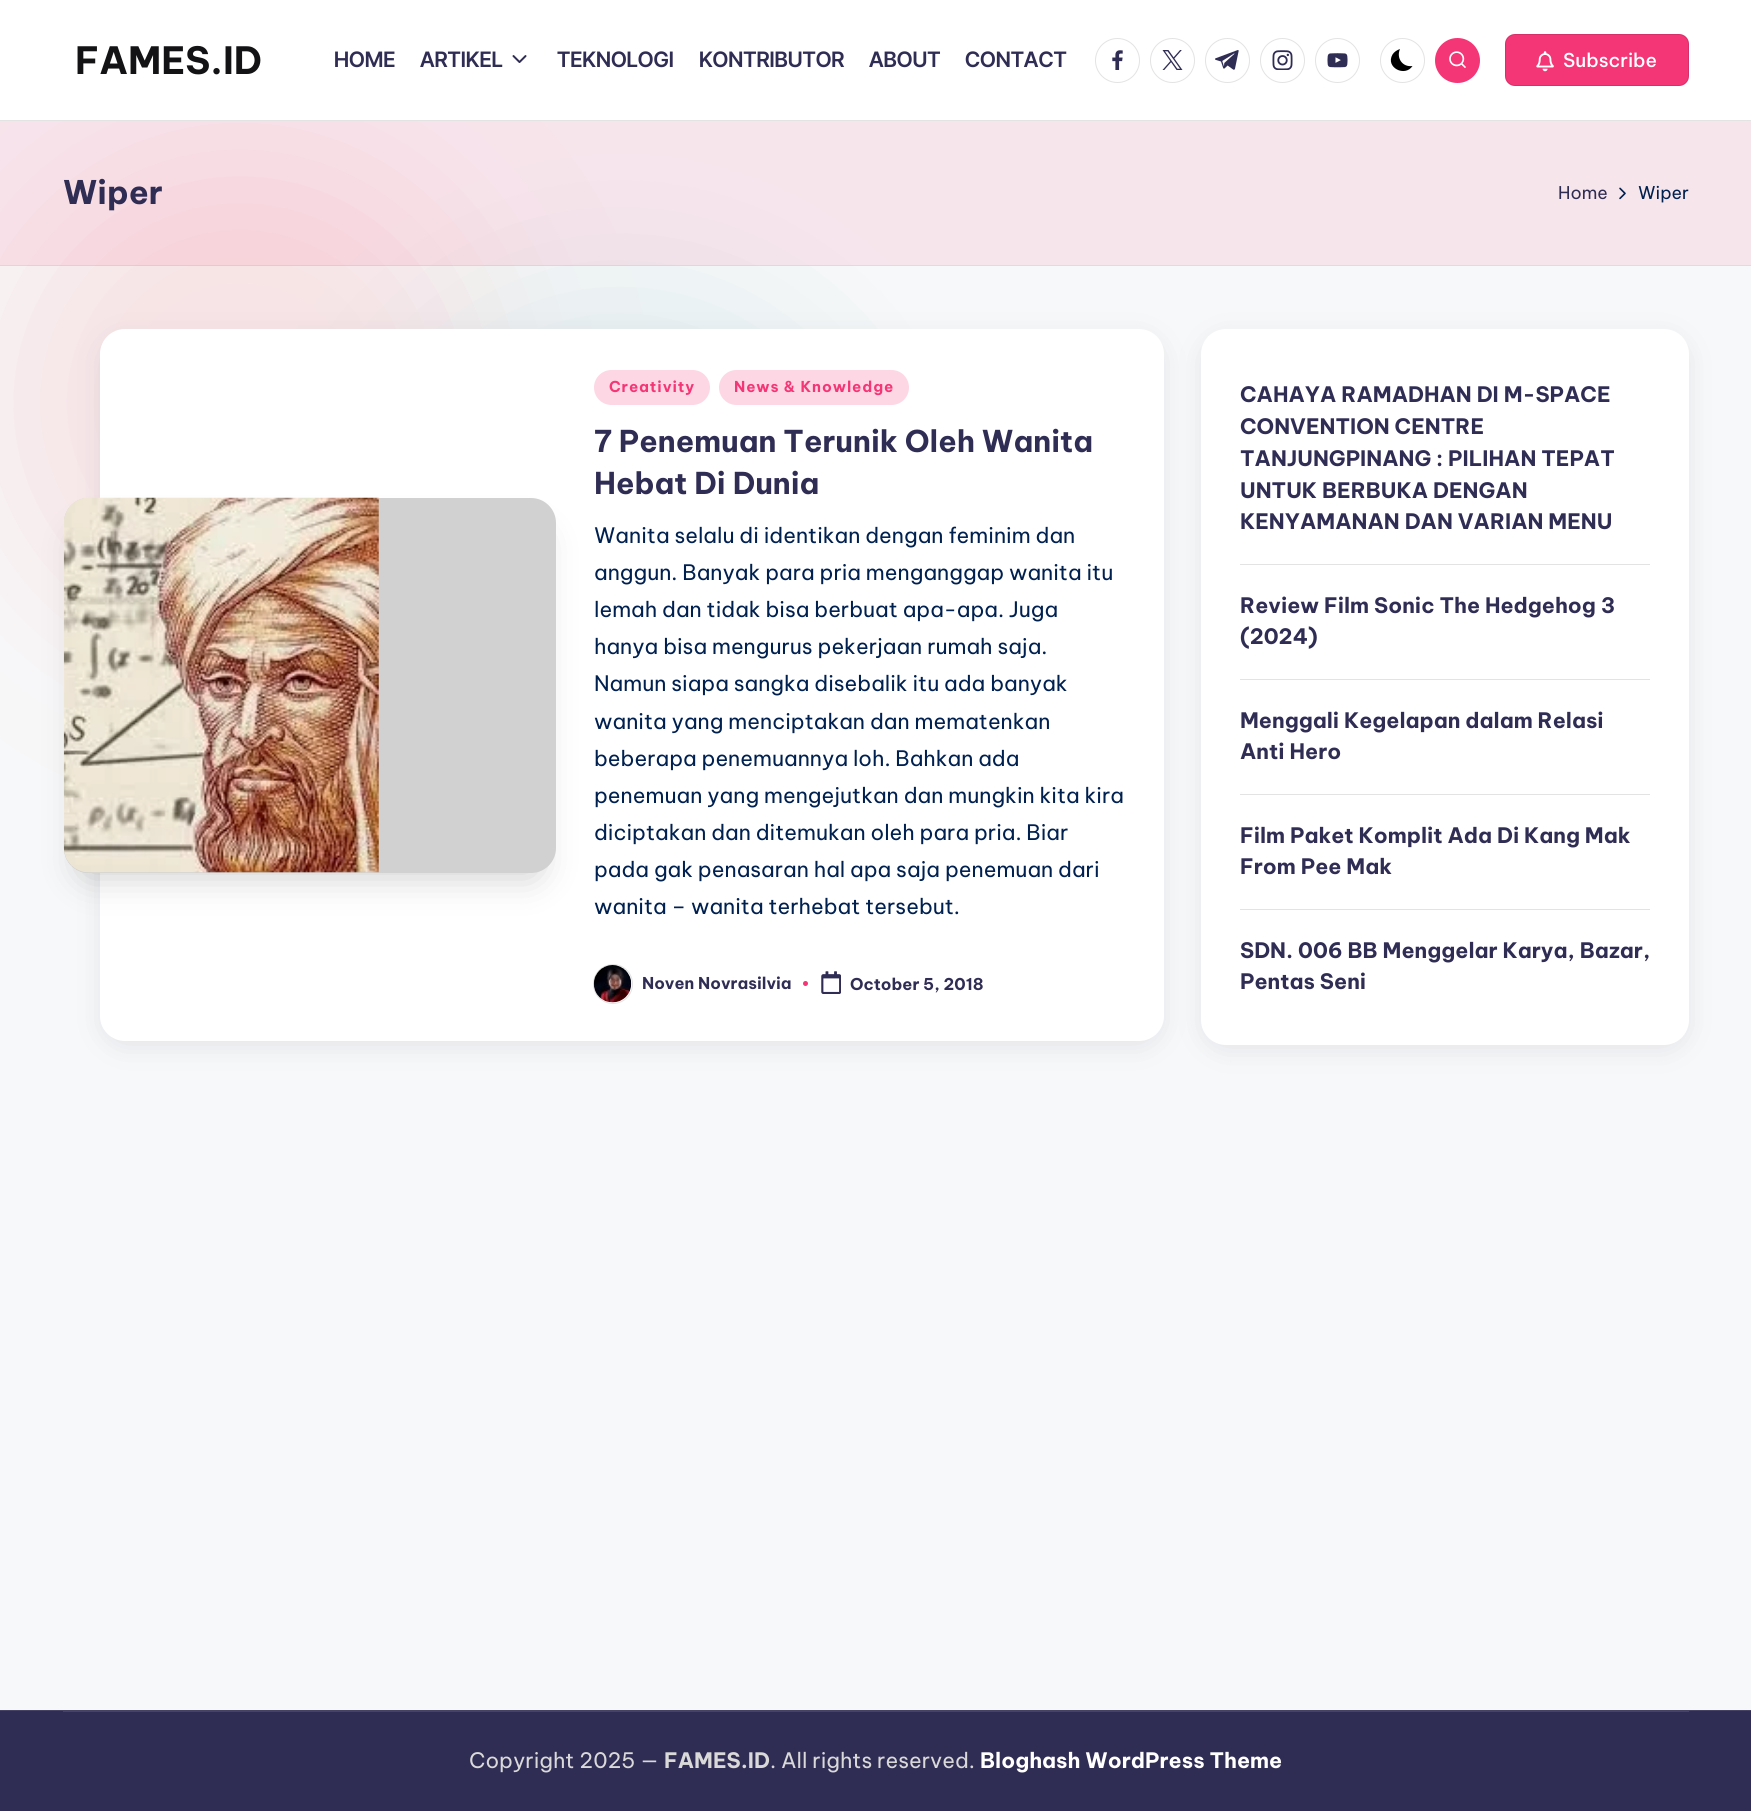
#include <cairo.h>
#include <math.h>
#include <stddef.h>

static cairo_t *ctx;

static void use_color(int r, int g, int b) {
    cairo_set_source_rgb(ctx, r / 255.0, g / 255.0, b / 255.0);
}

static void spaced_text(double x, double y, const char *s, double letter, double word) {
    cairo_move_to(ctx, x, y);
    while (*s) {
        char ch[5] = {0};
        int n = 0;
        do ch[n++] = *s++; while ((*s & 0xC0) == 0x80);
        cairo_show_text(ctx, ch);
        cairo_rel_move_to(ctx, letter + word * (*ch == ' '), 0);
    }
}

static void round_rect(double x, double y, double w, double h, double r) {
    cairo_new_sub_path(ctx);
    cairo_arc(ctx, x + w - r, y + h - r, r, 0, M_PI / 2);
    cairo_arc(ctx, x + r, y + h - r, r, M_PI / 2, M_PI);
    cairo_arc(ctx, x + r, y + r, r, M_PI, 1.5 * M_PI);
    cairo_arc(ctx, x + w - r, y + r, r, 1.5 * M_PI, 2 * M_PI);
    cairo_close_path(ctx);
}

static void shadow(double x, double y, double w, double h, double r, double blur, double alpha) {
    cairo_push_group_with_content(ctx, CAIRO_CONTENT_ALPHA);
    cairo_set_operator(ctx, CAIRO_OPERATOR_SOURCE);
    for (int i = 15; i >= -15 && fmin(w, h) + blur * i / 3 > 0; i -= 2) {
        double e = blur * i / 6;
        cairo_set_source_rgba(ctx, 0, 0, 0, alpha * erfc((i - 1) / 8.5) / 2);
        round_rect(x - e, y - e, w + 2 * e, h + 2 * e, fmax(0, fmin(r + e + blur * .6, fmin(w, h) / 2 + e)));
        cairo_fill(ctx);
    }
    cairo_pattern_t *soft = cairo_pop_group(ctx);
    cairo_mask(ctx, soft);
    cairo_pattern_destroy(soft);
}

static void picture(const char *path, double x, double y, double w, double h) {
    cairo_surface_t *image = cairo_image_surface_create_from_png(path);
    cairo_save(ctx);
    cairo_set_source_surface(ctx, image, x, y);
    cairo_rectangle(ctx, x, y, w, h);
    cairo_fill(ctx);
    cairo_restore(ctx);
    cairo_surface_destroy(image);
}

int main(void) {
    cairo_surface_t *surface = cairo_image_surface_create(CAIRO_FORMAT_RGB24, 1751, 1811);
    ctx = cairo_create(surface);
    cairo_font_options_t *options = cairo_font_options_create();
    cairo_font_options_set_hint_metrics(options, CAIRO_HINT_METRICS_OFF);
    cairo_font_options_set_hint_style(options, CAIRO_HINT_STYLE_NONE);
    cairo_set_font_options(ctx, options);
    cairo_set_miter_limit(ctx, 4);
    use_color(247, 248, 249);
    cairo_paint(ctx);
    use_color(247, 227, 229);
    shadow(0, 163, 480, 480, 240, 80, 1);
    use_color(4, 134, 139);
    shadow(380, 300, 480, 480, 240, 80, 0.1);
    use_color(255, 255, 255);
    cairo_rectangle(ctx, 0, 0, 1751, 120);
    cairo_fill(ctx);
    use_color(227, 227, 227);
    cairo_rectangle(ctx, 0, 120, 1751, 1);
    cairo_fill(ctx);
    cairo_select_font_face(ctx, "Be Vietnam Pro", CAIRO_FONT_SLANT_NORMAL, CAIRO_FONT_WEIGHT_BOLD);
    cairo_set_font_size(ctx, 37.5);
    use_color(19, 19, 21);
    cairo_move_to(ctx, 75, 74);
    cairo_show_text(ctx, "FAMES.ID");
    cairo_select_font_face(ctx, "Inter Tight SemiBold", CAIRO_FONT_SLANT_NORMAL, CAIRO_FONT_WEIGHT_NORMAL);
    cairo_set_font_size(ctx, 21.25);
    use_color(48, 45, 85);
    cairo_move_to(ctx, 334, 67);
    cairo_show_text(ctx, "HOME");
    cairo_move_to(ctx, 420, 67);
    cairo_show_text(ctx, "ARTIKEL");
    picture("img1.png", 512, 55, 15, 8);
    cairo_move_to(ctx, 557, 67);
    cairo_show_text(ctx, "TEKNOLOGI");
    cairo_move_to(ctx, 699, 67);
    cairo_show_text(ctx, "KONTRIBUTOR");
    cairo_move_to(ctx, 869, 67);
    cairo_show_text(ctx, "ABOUT");
    cairo_move_to(ctx, 965, 67);
    cairo_show_text(ctx, "CONTACT");
    cairo_new_path(ctx);
    cairo_arc(ctx, 1117.5, 60.5, 22, 0, 2 * M_PI);
    use_color(227, 227, 227);
    cairo_set_line_width(ctx, 1);
    cairo_stroke(ctx);
    picture("img2.png", 1112, 50, 11, 20);
    cairo_arc(ctx, 1172.5, 60.5, 22, 0, 2 * M_PI);
    cairo_stroke(ctx);
    picture("img3.png", 1162, 50, 21, 20);
    cairo_arc(ctx, 1227.5, 60.5, 22, 0, 2 * M_PI);
    cairo_stroke(ctx);
    picture("img4.png", 1215, 50, 24, 20);
    cairo_arc(ctx, 1282.5, 60.5, 22, 0, 2 * M_PI);
    cairo_stroke(ctx);
    picture("img5.png", 1272, 50, 21, 20);
    cairo_arc(ctx, 1337.5, 60.5, 22, 0, 2 * M_PI);
    cairo_stroke(ctx);
    picture("img6.png", 1327, 53, 21, 15);
    cairo_arc(ctx, 1402.5, 60.5, 22, 0, 2 * M_PI);
    cairo_stroke(ctx);
    use_color(0, 0, 0);
    cairo_new_path(ctx);
    cairo_move_to(ctx, 1412.5, 66);
    cairo_curve_to(ctx, 1402.5, 67.5, 1396, 58, 1400, 49);
    cairo_curve_to(ctx, 1397, 50, 1394, 52, 1392.5, 54.5);
    cairo_curve_to(ctx, 1385, 67.5, 1405, 77.5, 1412.5, 66);
    cairo_close_path(ctx);
    cairo_fill(ctx);
    use_color(244, 54, 118);
    cairo_arc(ctx, 1457.5, 60.5, 22.5, 0, 2 * M_PI);
    cairo_fill(ctx);
    picture("img7.png", 1449, 51, 17, 17);
    round_rect(1505, 34, 184, 52, 10);
    cairo_fill(ctx);
    round_rect(1505.5, 34.5, 183, 51, 9.5);
    cairo_set_source_rgba(ctx, 0, 0, 0, 0.12);
    cairo_stroke(ctx);
    picture("img8.png", 1536, 51, 18, 21);
    cairo_select_font_face(ctx, "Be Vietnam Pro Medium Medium", CAIRO_FONT_SLANT_NORMAL, CAIRO_FONT_WEIGHT_NORMAL);
    cairo_set_font_size(ctx, 19);
    use_color(255, 255, 255);
    cairo_move_to(ctx, 1563, 67);
    cairo_show_text(ctx, "Subscribe");
    cairo_set_source_rgba(ctx, 0.957, 0.212, 0.463, 0.1);
    cairo_rectangle(ctx, 0, 121, 1751, 145);
    cairo_fill(ctx);
    cairo_set_source_rgba(ctx, 0, 0, 0, 0.06);
    cairo_rectangle(ctx, 0, 265, 1751, 1);
    cairo_fill(ctx);
    cairo_select_font_face(ctx, "Be Vietnam Pro", CAIRO_FONT_SLANT_NORMAL, CAIRO_FONT_WEIGHT_BOLD);
    cairo_set_font_size(ctx, 32.5);
    use_color(48, 45, 85);
    cairo_move_to(ctx, 63, 204);
    cairo_show_text(ctx, "Wiper");
    cairo_select_font_face(ctx, "Be Vietnam Pro", CAIRO_FONT_SLANT_NORMAL, CAIRO_FONT_WEIGHT_NORMAL);
    cairo_set_font_size(ctx, 17.5);
    cairo_move_to(ctx, 1558, 199);
    cairo_show_text(ctx, "Home");
    picture("img9.png", 1619, 187, 7, 13);
    use_color(0, 32, 80);
    cairo_move_to(ctx, 1638, 199);
    cairo_show_text(ctx, "Wiper");
    use_color(69, 67, 96);
    shadow(100, 335, 1064, 713, 25, 12.5, 0.1);
    use_color(255, 255, 255);
    round_rect(100, 329, 1064, 712, 25);
    cairo_fill(ctx);
    use_color(0, 0, 0);
    shadow(79, 533, 462, 345, 10, 17.5, 0.18);
    use_color(209, 209, 209);
    round_rect(64, 498, 492, 375, 25);
    cairo_fill(ctx);
    cairo_new_path(ctx);
    cairo_move_to(ctx, 89, 498);
    cairo_line_to(ctx, 379, 498);
    cairo_line_to(ctx, 379, 873);
    cairo_line_to(ctx, 89, 873);
    cairo_curve_to(ctx, 75, 873, 64, 862, 64, 848);
    cairo_line_to(ctx, 64, 523);
    cairo_curve_to(ctx, 64, 509, 75, 498, 89, 498);
    cairo_close_path(ctx);
    cairo_fill(ctx);
    picture("img10.png", 63, 497, 316, 376);
    use_color(253, 215, 228);
    round_rect(594, 370, 116, 35, 17.5);
    cairo_fill(ctx);
    cairo_select_font_face(ctx, "Be Vietnam Pro", CAIRO_FONT_SLANT_NORMAL, CAIRO_FONT_WEIGHT_BOLD);
    cairo_set_font_size(ctx, 15);
    use_color(244, 54, 118);
    spaced_text(609, 392, "Creativity", 0.9, 0);
    use_color(253, 215, 228);
    round_rect(719, 370, 190, 35, 17.5);
    cairo_fill(ctx);
    use_color(244, 54, 118);
    spaced_text(734, 392, "News & Knowledge", 0.9, 0);
    cairo_set_font_size(ctx, 30);
    use_color(48, 45, 85);
    cairo_move_to(ctx, 594, 452);
    cairo_show_text(ctx, "7 Penemuan Terunik Oleh Wanita");
    cairo_move_to(ctx, 594, 494);
    cairo_show_text(ctx, "Hebat Di Dunia");
    cairo_select_font_face(ctx, "Be Vietnam Pro", CAIRO_FONT_SLANT_NORMAL, CAIRO_FONT_WEIGHT_NORMAL);
    cairo_set_font_size(ctx, 21.25);
    use_color(0, 32, 80);
    cairo_move_to(ctx, 594, 543);
    cairo_show_text(ctx, "Wanita selalu di identikan dengan feminim dan");
    cairo_move_to(ctx, 594, 580);
    cairo_show_text(ctx, "anggun. Banyak para pria menganggap wanita itu");
    cairo_move_to(ctx, 594, 617);
    cairo_show_text(ctx, "lemah dan tidak bisa berbuat apa-apa. Juga");
    cairo_move_to(ctx, 594, 654);
    cairo_show_text(ctx, "hanya bisa mengurus pekerjaan rumah saja.");
    cairo_move_to(ctx, 594, 691);
    cairo_show_text(ctx, "Namun siapa sangka disebalik itu ada banyak");
    cairo_move_to(ctx, 594, 729);
    cairo_show_text(ctx, "wanita yang menciptakan dan mematenkan");
    cairo_move_to(ctx, 594, 766);
    cairo_show_text(ctx, "beberapa penemuannya loh. Bahkan ada");
    cairo_move_to(ctx, 594, 803);
    cairo_show_text(ctx, "penemuan yang mengejutkan dan mungkin kita kira");
    cairo_move_to(ctx, 594, 840);
    cairo_show_text(ctx, "diciptakan dan ditemukan oleh para pria. Biar");
    cairo_move_to(ctx, 594, 877);
    cairo_show_text(ctx, "pada gak penasaran hal apa saja penemuan dari");
    cairo_move_to(ctx, 594, 914);
    cairo_show_text(ctx, "wanita – wanita terhebat tersebut.");
    picture("img11.png", 593, 965, 39, 38);
    cairo_arc(ctx, 613, 984, 19.5, 0, 2 * M_PI);
    cairo_set_source_rgba(ctx, 0.725, 0.725, 0.725, 0.4);
    cairo_stroke(ctx);
    cairo_select_font_face(ctx, "Be Vietnam Pro", CAIRO_FONT_SLANT_NORMAL, CAIRO_FONT_WEIGHT_BOLD);
    cairo_set_font_size(ctx, 16.25);
    use_color(48, 45, 85);
    cairo_move_to(ctx, 642, 989);
    cairo_show_text(ctx, "Noven Novrasilvia");
    use_color(244, 54, 118);
    cairo_new_path(ctx);
    cairo_arc(ctx, 805.5, 983.5, 2.5, 0, 2 * M_PI);
    cairo_fill(ctx);
    picture("img12.png", 821, 971, 20, 23);
    use_color(48, 45, 85);
    cairo_move_to(ctx, 850, 990);
    cairo_show_text(ctx, "October 5, 2018");
    use_color(69, 67, 96);
    shadow(1201, 335, 488, 716, 25, 12.5, 0.1);
    use_color(255, 255, 255);
    round_rect(1201, 329, 488, 716, 25);
    cairo_fill(ctx);
    cairo_set_font_size(ctx, 21.25);
    use_color(48, 45, 85);
    cairo_move_to(ctx, 1240, 402);
    cairo_show_text(ctx, "CAHAYA RAMADHAN DI M-SPACE");
    cairo_move_to(ctx, 1240, 434);
    cairo_show_text(ctx, "CONVENTION CENTRE");
    cairo_move_to(ctx, 1240, 466);
    cairo_show_text(ctx, "TANJUNGPINANG : PILIHAN TEPAT");
    cairo_move_to(ctx, 1240, 498);
    cairo_show_text(ctx, "UNTUK BERBUKA DENGAN");
    cairo_move_to(ctx, 1240, 529);
    cairo_show_text(ctx, "KENYAMANAN DAN VARIAN MENU");
    use_color(227, 227, 227);
    cairo_rectangle(ctx, 1240, 564, 410, 1);
    cairo_fill(ctx);
    use_color(48, 45, 85);
    cairo_move_to(ctx, 1240, 613);
    cairo_show_text(ctx, "Review Film Sonic The Hedgehog 3");
    cairo_move_to(ctx, 1240, 644);
    cairo_show_text(ctx, "(2024)");
    use_color(227, 227, 227);
    cairo_rectangle(ctx, 1240, 679, 410, 1);
    cairo_fill(ctx);
    use_color(48, 45, 85);
    cairo_move_to(ctx, 1240, 728);
    cairo_show_text(ctx, "Menggali Kegelapan dalam Relasi");
    cairo_move_to(ctx, 1240, 759);
    cairo_show_text(ctx, "Anti Hero");
    use_color(227, 227, 227);
    cairo_rectangle(ctx, 1240, 794, 410, 1);
    cairo_fill(ctx);
    use_color(48, 45, 85);
    cairo_move_to(ctx, 1240, 843);
    cairo_show_text(ctx, "Film Paket Komplit Ada Di Kang Mak");
    cairo_move_to(ctx, 1240, 874);
    cairo_show_text(ctx, "From Pee Mak");
    use_color(227, 227, 227);
    cairo_rectangle(ctx, 1240, 909, 410, 1);
    cairo_fill(ctx);
    use_color(48, 45, 85);
    cairo_move_to(ctx, 1240, 958);
    cairo_show_text(ctx, "SDN. 006 BB Menggelar Karya, Bazar,");
    cairo_move_to(ctx, 1240, 989);
    cairo_show_text(ctx, "Pentas Seni");
    cairo_rectangle(ctx, 0, 1711, 1751, 100);
    cairo_fill(ctx);
    use_color(69, 66, 102);
    cairo_rectangle(ctx, 0, 1710, 1751, 1);
    cairo_fill(ctx);
    cairo_rectangle(ctx, 63, 1711, 1626, 1);
    cairo_fill(ctx);
    cairo_select_font_face(ctx, "Be Vietnam Pro", CAIRO_FONT_SLANT_NORMAL, CAIRO_FONT_WEIGHT_NORMAL);
    use_color(217, 217, 217);
    cairo_move_to(ctx, 469, 1768);
    cairo_show_text(ctx, "Copyright 2025 —");
    cairo_select_font_face(ctx, "Be Vietnam Pro", CAIRO_FONT_SLANT_NORMAL, CAIRO_FONT_WEIGHT_BOLD);
    cairo_move_to(ctx, 664, 1768);
    cairo_show_text(ctx, "FAMES.ID");
    cairo_select_font_face(ctx, "Be Vietnam Pro", CAIRO_FONT_SLANT_NORMAL, CAIRO_FONT_WEIGHT_NORMAL);
    cairo_move_to(ctx, 770, 1768);
    cairo_show_text(ctx, ". All rights reserved.");
    cairo_select_font_face(ctx, "Be Vietnam Pro", CAIRO_FONT_SLANT_NORMAL, CAIRO_FONT_WEIGHT_BOLD);
    use_color(255, 255, 255);
    cairo_move_to(ctx, 980, 1768);
    cairo_show_text(ctx, "Bloghash WordPress Theme");
    cairo_surface_write_to_png(surface, "result.png");
    cairo_font_options_destroy(options);
    cairo_destroy(ctx);
    cairo_surface_destroy(surface);
    return 0;
}
